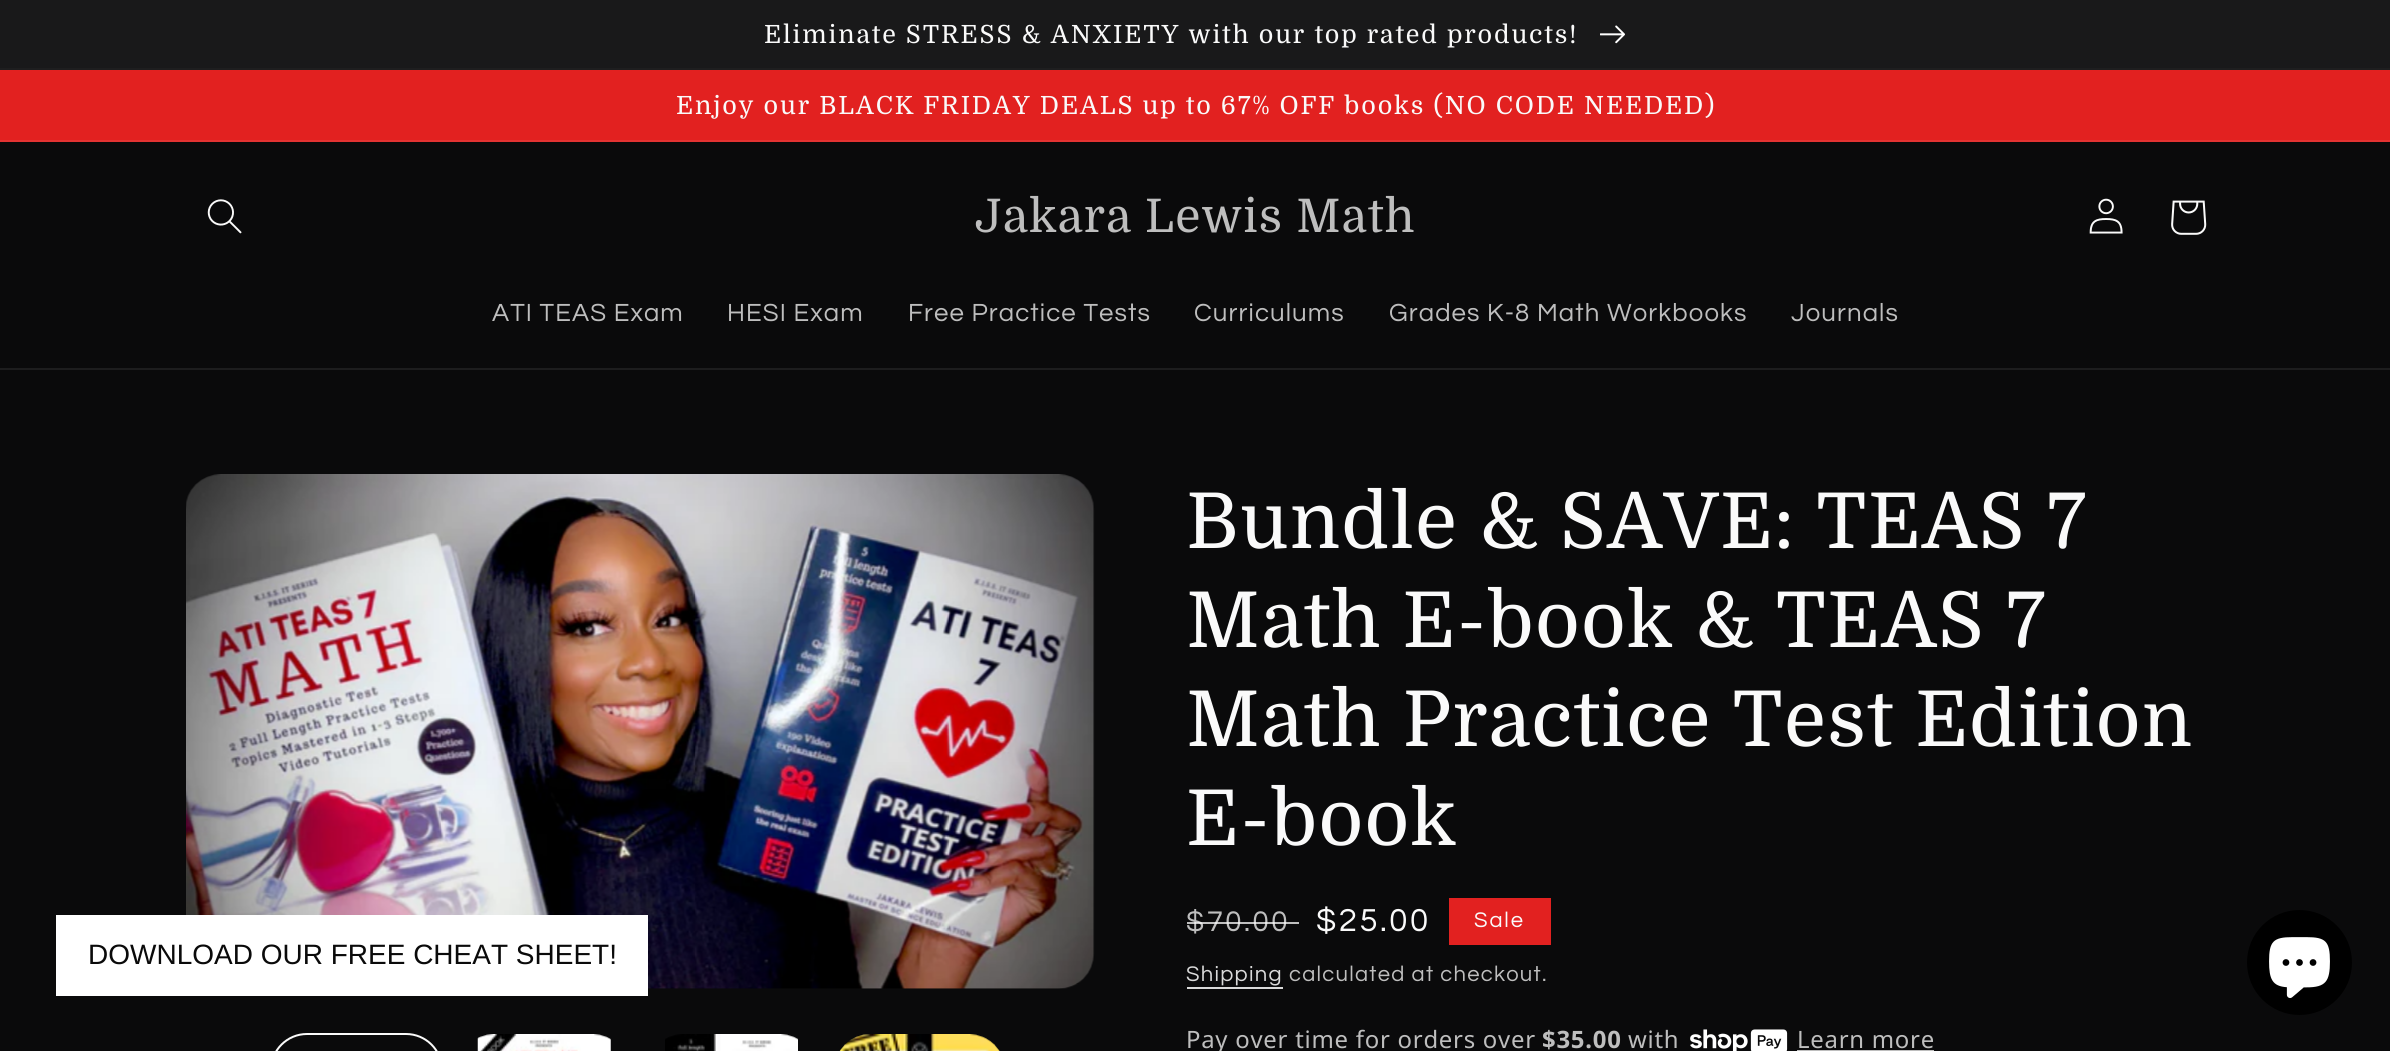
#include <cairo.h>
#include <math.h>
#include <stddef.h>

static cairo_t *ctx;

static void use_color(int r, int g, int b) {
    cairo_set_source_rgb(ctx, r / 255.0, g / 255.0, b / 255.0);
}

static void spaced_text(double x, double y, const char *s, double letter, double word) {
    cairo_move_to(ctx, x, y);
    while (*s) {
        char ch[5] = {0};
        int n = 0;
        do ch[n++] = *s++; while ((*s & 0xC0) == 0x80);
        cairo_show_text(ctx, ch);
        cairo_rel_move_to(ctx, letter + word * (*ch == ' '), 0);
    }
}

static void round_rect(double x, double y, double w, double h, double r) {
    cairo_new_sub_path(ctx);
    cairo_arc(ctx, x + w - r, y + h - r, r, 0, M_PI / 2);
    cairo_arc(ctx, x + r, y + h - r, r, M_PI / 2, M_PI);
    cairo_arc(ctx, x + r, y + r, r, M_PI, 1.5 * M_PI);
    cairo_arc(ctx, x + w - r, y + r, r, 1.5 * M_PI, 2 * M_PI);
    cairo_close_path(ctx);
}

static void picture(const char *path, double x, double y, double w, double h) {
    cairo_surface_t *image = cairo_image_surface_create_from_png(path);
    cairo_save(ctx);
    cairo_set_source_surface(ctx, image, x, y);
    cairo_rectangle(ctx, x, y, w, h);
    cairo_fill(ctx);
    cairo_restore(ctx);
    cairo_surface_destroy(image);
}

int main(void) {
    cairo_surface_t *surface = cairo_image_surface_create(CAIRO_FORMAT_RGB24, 2390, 1051);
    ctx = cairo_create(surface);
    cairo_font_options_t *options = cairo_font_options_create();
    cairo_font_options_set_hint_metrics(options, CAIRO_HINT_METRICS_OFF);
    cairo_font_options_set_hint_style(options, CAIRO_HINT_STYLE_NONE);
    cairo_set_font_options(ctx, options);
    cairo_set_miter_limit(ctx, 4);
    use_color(10, 10, 11);
    cairo_paint(ctx);
    use_color(30, 30, 31);
    cairo_rectangle(ctx, 0, 68, 2390, 2);
    cairo_fill(ctx);
    use_color(25, 25, 26);
    cairo_rectangle(ctx, 0, 0, 2390, 68);
    cairo_fill(ctx);
    cairo_select_font_face(ctx, "Domine", CAIRO_FONT_SLANT_NORMAL, CAIRO_FONT_WEIGHT_NORMAL);
    cairo_set_font_size(ctx, 25.05);
    use_color(250, 250, 250);
    spaced_text(764, 43, "Eliminate STRESS & ANXIETY with our top rated products!", 1.85, 0);
    picture("img1.png", 1600, 25, 25, 19);
    use_color(226, 33, 32);
    cairo_rectangle(ctx, 0, 70, 2390, 70);
    cairo_fill(ctx);
    use_color(228, 51, 50);
    cairo_rectangle(ctx, 0, 140, 2390, 2);
    cairo_fill(ctx);
    use_color(250, 250, 250);
    spaced_text(676, 114, "Enjoy our BLACK FRIDAY DEALS up to 67% OFF books (NO CODE NEEDED)", 1.85, 0);
    use_color(29, 29, 30);
    cairo_rectangle(ctx, 0, 368, 2390, 2);
    cairo_fill(ctx);
    picture("img2.png", 207, 199, 35, 35);
    cairo_set_font_size(ctx, 46.25);
    use_color(190, 190, 190);
    spaced_text(975, 232, "Jakara Lewis Math", 1.15, 0);
    picture("img3.png", 2089, 198, 34, 36);
    picture("img4.png", 2171, 200, 36, 35);
    cairo_select_font_face(ctx, "Questrial", CAIRO_FONT_SLANT_NORMAL, CAIRO_FONT_WEIGHT_NORMAL);
    cairo_set_font_size(ctx, 25.75);
    spaced_text(492, 321, "ATI TEAS Exam", 1.1, 0);
    spaced_text(727, 321, "HESI Exam", 1.1, 0);
    spaced_text(908, 321, "Free Practice Tests", 1.1, 0);
    spaced_text(1194, 321, "Curriculums", 1.1, 0);
    spaced_text(1389, 321, "Grades K-8 Math Workbooks", 1.1, 0);
    spaced_text(1791, 321, "Journals", 1.1, 0);
    picture("img5.png", 186, 474, 909, 515);
    use_color(255, 255, 255);
    cairo_rectangle(ctx, 56, 915, 592, 81);
    cairo_fill(ctx);
    cairo_select_font_face(ctx, "Liberation Sans", CAIRO_FONT_SLANT_NORMAL, CAIRO_FONT_WEIGHT_NORMAL);
    cairo_set_font_size(ctx, 28);
    use_color(10, 10, 10);
    cairo_move_to(ctx, 88, 964);
    cairo_show_text(ctx, "DOWNLOAD OUR FREE CHEAT SHEET!");
    round_rect(271, 1034, 171, 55, 36);
    use_color(250, 250, 250);
    cairo_stroke(ctx);
    picture("img6.png", 477, 1034, 134, 17);
    picture("img7.png", 665, 1034, 133, 17);
    picture("img8.png", 839, 1034, 161, 17);
    cairo_select_font_face(ctx, "Domine", CAIRO_FONT_SLANT_NORMAL, CAIRO_FONT_WEIGHT_NORMAL);
    cairo_set_font_size(ctx, 77);
    spaced_text(1186, 548, "Bundle & SAVE: TEAS 7", 1.15, 0);
    spaced_text(1186, 647, "Math E-book & TEAS 7", 1.15, 0);
    spaced_text(1186, 746, "Math Practice Test Edition", 1.15, 0);
    spaced_text(1186, 845, "E-book", 1.15, 0);
    cairo_select_font_face(ctx, "Questrial", CAIRO_FONT_SLANT_NORMAL, CAIRO_FONT_WEIGHT_NORMAL);
    cairo_set_font_size(ctx, 29.5);
    use_color(190, 190, 190);
    spaced_text(1186, 931, "$70.00", 2.5, 0);
    cairo_set_source_rgba(ctx, 0.98, 0.98, 0.98, 0.75);
    cairo_rectangle(ctx, 1187, 922, 112, 2);
    cairo_fill(ctx);
    cairo_set_font_size(ctx, 33);
    use_color(250, 250, 250);
    spaced_text(1316, 931, "$25.00", 2.5, 0);
    use_color(226, 33, 32);
    cairo_rectangle(ctx, 1449, 898, 102, 47);
    cairo_fill(ctx);
    cairo_set_font_size(ctx, 22);
    use_color(250, 250, 250);
    spaced_text(1474, 927, "Sale", 1.85, 0);
    use_color(218, 218, 218);
    spaced_text(1186, 981, "Shipping", 1.25, 0);
    cairo_rectangle(ctx, 1187, 987, 96, 2);
    cairo_fill(ctx);
    use_color(190, 190, 190);
    spaced_text(1289, 981, "calculated at checkout.", 1.25, 0);
    cairo_select_font_face(ctx, "Noto Sans", CAIRO_FONT_SLANT_NORMAL, CAIRO_FONT_WEIGHT_NORMAL);
    cairo_set_font_size(ctx, 23.9);
    spaced_text(1186, 1048, "Pay over time for orders over", 0.75, 0);
    cairo_select_font_face(ctx, "Noto Sans", CAIRO_FONT_SLANT_NORMAL, CAIRO_FONT_WEIGHT_BOLD);
    spaced_text(1542, 1048, "$35.00", 0.75, 0);
    cairo_select_font_face(ctx, "Noto Sans", CAIRO_FONT_SLANT_NORMAL, CAIRO_FONT_WEIGHT_NORMAL);
    spaced_text(1628, 1048, "with", 0.75, 0);
    picture("img9.png", 1690, 1029, 98, 22);
    spaced_text(1797, 1048, "Learn more", 0.75, 0);
    cairo_rectangle(ctx, 1797, 1050, 137, 1);
    cairo_fill(ctx);
    use_color(0, 0, 0);
    cairo_arc(ctx, 2299.5, 962.5, 52.5, 0, 2 * M_PI);
    cairo_fill(ctx);
    picture("img10.png", 2269, 937, 61, 61);
    cairo_surface_write_to_png(surface, "result.png");
    cairo_font_options_destroy(options);
    cairo_destroy(ctx);
    cairo_surface_destroy(surface);
    return 0;
}
